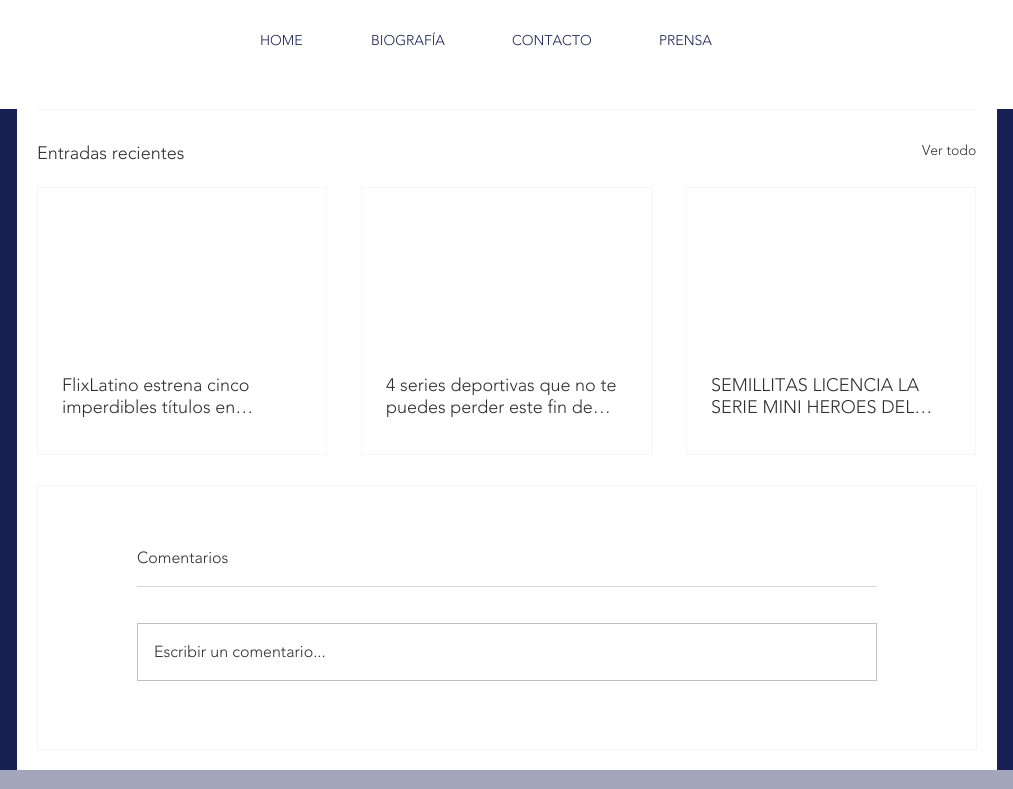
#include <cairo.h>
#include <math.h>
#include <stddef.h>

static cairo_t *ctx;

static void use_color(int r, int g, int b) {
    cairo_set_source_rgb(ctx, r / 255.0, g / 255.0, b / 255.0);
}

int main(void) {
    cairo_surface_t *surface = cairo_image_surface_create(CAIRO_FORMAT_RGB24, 1013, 789);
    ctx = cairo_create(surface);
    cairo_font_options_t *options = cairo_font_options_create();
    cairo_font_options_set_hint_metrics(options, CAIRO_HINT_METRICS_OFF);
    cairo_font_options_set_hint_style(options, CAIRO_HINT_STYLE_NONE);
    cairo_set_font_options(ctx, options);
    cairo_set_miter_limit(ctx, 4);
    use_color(24, 33, 83);
    cairo_paint(ctx);
    use_color(255, 255, 255);
    cairo_rectangle(ctx, 17, 109, 980, 661);
    cairo_fill(ctx);
    cairo_rectangle(ctx, 37.5, -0.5, 939, 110);
    use_color(245, 245, 245);
    cairo_set_line_width(ctx, 1);
    cairo_stroke(ctx);
    use_color(255, 255, 255);
    cairo_rectangle(ctx, 0, 0, 1013, 109);
    cairo_fill(ctx);
    cairo_select_font_face(ctx, "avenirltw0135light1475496 Light", CAIRO_FONT_SLANT_NORMAL, CAIRO_FONT_WEIGHT_NORMAL);
    cairo_set_font_size(ctx, 14);
    use_color(24, 33, 83);
    cairo_move_to(ctx, 260, 45);
    cairo_show_text(ctx, "HOME");
    cairo_move_to(ctx, 371, 45);
    cairo_show_text(ctx, "BIOGRAFÍA");
    cairo_move_to(ctx, 512, 45);
    cairo_show_text(ctx, "CONTACTO");
    cairo_move_to(ctx, 659, 45);
    cairo_show_text(ctx, "PRENSA");
    cairo_set_font_size(ctx, 18);
    use_color(47, 46, 46);
    cairo_move_to(ctx, 37, 159);
    cairo_show_text(ctx, "Entradas recientes");
    cairo_set_font_size(ctx, 14);
    cairo_move_to(ctx, 922, 155);
    cairo_show_text(ctx, "Ver todo");
    cairo_rectangle(ctx, 37.5, 187.5, 289, 267);
    use_color(245, 245, 245);
    cairo_stroke(ctx);
    cairo_set_font_size(ctx, 18);
    use_color(47, 46, 46);
    cairo_move_to(ctx, 62, 391);
    cairo_show_text(ctx, "FlixLatino estrena cinco");
    cairo_move_to(ctx, 62, 413);
    cairo_show_text(ctx, "imperdibles títulos en…");
    cairo_rectangle(ctx, 361.5, 187.5, 290, 267);
    use_color(245, 245, 245);
    cairo_stroke(ctx);
    use_color(47, 46, 46);
    cairo_move_to(ctx, 386, 391);
    cairo_show_text(ctx, "4 series deportivas que no te");
    cairo_move_to(ctx, 386, 413);
    cairo_show_text(ctx, "puedes perder este fin de…");
    cairo_rectangle(ctx, 686.5, 187.5, 289, 267);
    use_color(245, 245, 245);
    cairo_stroke(ctx);
    use_color(47, 46, 46);
    cairo_move_to(ctx, 711, 391);
    cairo_show_text(ctx, "SEMILLITAS LICENCIA LA");
    cairo_move_to(ctx, 711, 413);
    cairo_show_text(ctx, "SERIE MINI HEROES DEL…");
    cairo_rectangle(ctx, 37.5, 485.5, 939, 264);
    use_color(245, 245, 245);
    cairo_stroke(ctx);
    cairo_set_font_size(ctx, 16);
    use_color(47, 46, 46);
    cairo_move_to(ctx, 137, 563);
    cairo_show_text(ctx, "Comentarios");
    use_color(213, 213, 213);
    cairo_rectangle(ctx, 137, 586, 740, 1);
    cairo_fill(ctx);
    cairo_rectangle(ctx, 137.5, 623.5, 739, 57);
    use_color(193, 192, 192);
    cairo_stroke(ctx);
    use_color(47, 46, 46);
    cairo_move_to(ctx, 154, 657);
    cairo_show_text(ctx, "Escribir un comentario...");
    use_color(163, 166, 186);
    cairo_rectangle(ctx, 0, 770, 1013, 19);
    cairo_fill(ctx);
    cairo_surface_write_to_png(surface, "result.png");
    cairo_font_options_destroy(options);
    cairo_destroy(ctx);
    cairo_surface_destroy(surface);
    return 0;
}
